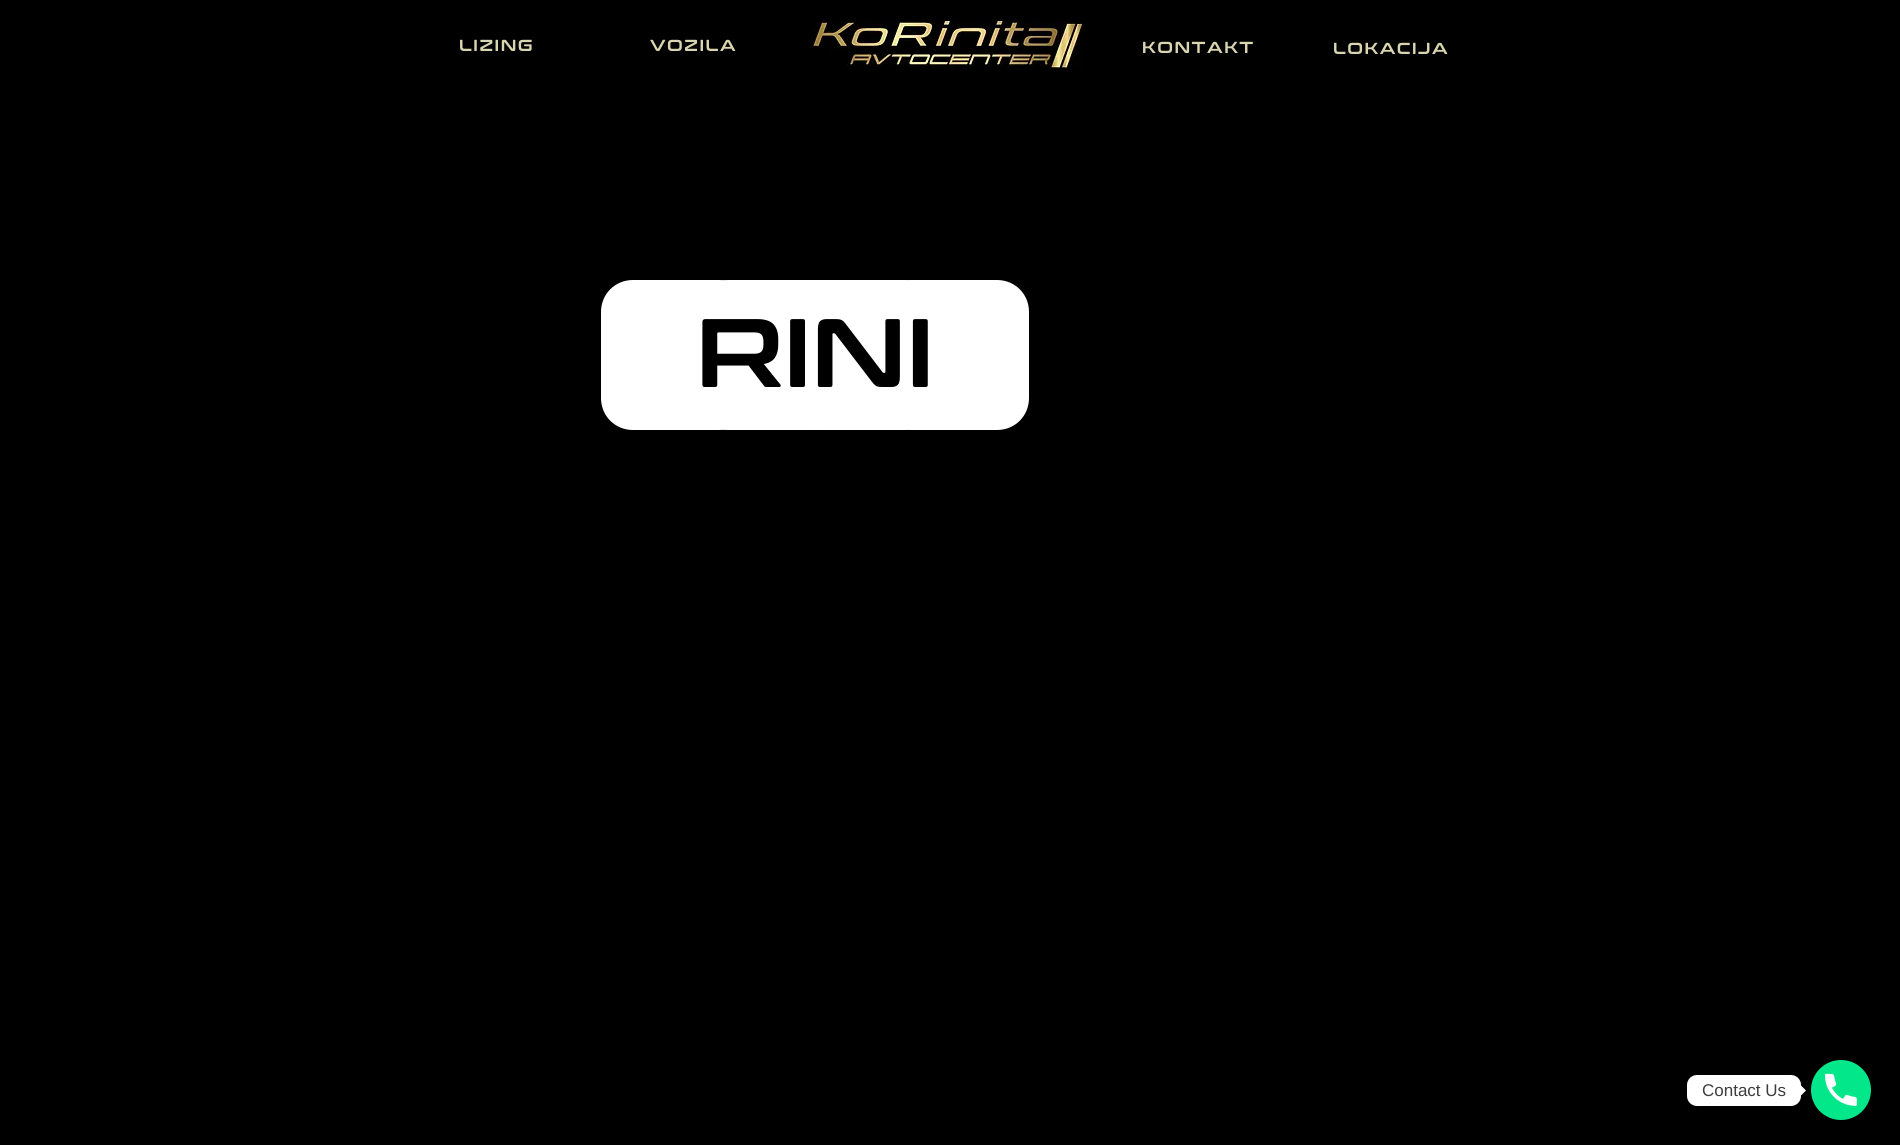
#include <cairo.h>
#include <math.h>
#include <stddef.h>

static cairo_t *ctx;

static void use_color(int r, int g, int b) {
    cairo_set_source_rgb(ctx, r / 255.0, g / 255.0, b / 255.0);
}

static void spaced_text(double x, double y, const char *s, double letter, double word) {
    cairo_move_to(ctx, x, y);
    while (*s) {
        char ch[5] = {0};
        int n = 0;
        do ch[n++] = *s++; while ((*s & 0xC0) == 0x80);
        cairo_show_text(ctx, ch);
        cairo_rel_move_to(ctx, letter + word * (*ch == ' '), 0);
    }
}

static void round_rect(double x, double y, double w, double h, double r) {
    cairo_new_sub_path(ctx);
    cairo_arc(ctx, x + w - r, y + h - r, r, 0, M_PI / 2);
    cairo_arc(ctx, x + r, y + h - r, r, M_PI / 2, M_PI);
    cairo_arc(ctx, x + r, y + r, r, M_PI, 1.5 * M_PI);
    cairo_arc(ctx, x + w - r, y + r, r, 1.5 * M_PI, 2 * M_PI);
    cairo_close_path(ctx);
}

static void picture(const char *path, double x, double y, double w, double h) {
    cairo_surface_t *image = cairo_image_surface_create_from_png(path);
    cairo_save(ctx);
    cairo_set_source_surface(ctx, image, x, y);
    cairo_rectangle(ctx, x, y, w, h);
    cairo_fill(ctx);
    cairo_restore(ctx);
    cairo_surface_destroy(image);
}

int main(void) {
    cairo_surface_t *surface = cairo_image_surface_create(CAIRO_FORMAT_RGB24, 1900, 1145);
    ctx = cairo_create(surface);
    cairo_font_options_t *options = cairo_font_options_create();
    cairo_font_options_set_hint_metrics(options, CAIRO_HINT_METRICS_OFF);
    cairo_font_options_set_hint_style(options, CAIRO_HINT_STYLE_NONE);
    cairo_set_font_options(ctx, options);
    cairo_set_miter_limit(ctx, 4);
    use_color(0, 0, 0);
    cairo_paint(ctx);
    cairo_select_font_face(ctx, "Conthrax", CAIRO_FONT_SLANT_NORMAL, CAIRO_FONT_WEIGHT_NORMAL);
    cairo_set_font_size(ctx, 16);
    use_color(218, 213, 177);
    spaced_text(459, 51, "LIZING", 1.5, 0);
    spaced_text(650, 51, "VOZILA", 1.5, 0);
    picture("img1.png", 811, 18, 272, 52);
    spaced_text(1142, 53, "KONTAKT", 1.5, 0);
    spaced_text(1333, 54, "LOKACIJA", 1.5, 0);
    use_color(255, 255, 255);
    cairo_new_path(ctx);
    cairo_move_to(ctx, 719, 430);
    cairo_line_to(ctx, 633, 430);
    cairo_curve_to(ctx, 615, 430, 601, 416, 601, 398);
    cairo_line_to(ctx, 601, 312);
    cairo_curve_to(ctx, 601, 294, 615, 280, 633, 280);
    cairo_line_to(ctx, 719, 280);
    cairo_curve_to(ctx, 737, 280, 751, 294, 751, 312);
    cairo_line_to(ctx, 751, 398);
    cairo_curve_to(ctx, 751, 416, 737, 430, 719, 430);
    cairo_close_path(ctx);
    cairo_fill(ctx);
    cairo_new_path(ctx);
    cairo_move_to(ctx, 997, 430);
    cairo_line_to(ctx, 911, 430);
    cairo_curve_to(ctx, 893, 430, 879, 416, 879, 398);
    cairo_line_to(ctx, 879, 312);
    cairo_curve_to(ctx, 879, 294, 893, 280, 911, 280);
    cairo_line_to(ctx, 997, 280);
    cairo_curve_to(ctx, 1015, 280, 1029, 294, 1029, 312);
    cairo_line_to(ctx, 1029, 398);
    cairo_curve_to(ctx, 1029, 416, 1015, 430, 997, 430);
    cairo_close_path(ctx);
    cairo_fill(ctx);
    cairo_new_path(ctx);
    cairo_move_to(ctx, 905, 430);
    cairo_line_to(ctx, 819, 430);
    cairo_curve_to(ctx, 801, 430, 787, 416, 787, 398);
    cairo_line_to(ctx, 787, 312);
    cairo_curve_to(ctx, 787, 294, 801, 280, 819, 280);
    cairo_line_to(ctx, 905, 280);
    cairo_curve_to(ctx, 923, 280, 937, 294, 937, 312);
    cairo_line_to(ctx, 937, 398);
    cairo_curve_to(ctx, 937, 416, 923, 430, 905, 430);
    cairo_close_path(ctx);
    cairo_fill(ctx);
    cairo_new_path(ctx);
    cairo_move_to(ctx, 814, 430);
    cairo_line_to(ctx, 728, 430);
    cairo_curve_to(ctx, 710, 430, 696, 416, 696, 398);
    cairo_line_to(ctx, 696, 312);
    cairo_curve_to(ctx, 696, 294, 710, 280, 728, 280);
    cairo_line_to(ctx, 814, 280);
    cairo_curve_to(ctx, 832, 280, 846, 294, 846, 312);
    cairo_line_to(ctx, 846, 398);
    cairo_curve_to(ctx, 846, 416, 832, 430, 814, 430);
    cairo_close_path(ctx);
    cairo_fill(ctx);
    cairo_set_font_size(ctx, 97);
    use_color(0, 0, 0);
    cairo_move_to(ctx, 696, 387);
    cairo_show_text(ctx, "RINI");
    use_color(255, 255, 255);
    round_rect(1687, 1075, 114, 31, 10);
    cairo_fill(ctx);
    cairo_select_font_face(ctx, "Liberation Sans", CAIRO_FONT_SLANT_NORMAL, CAIRO_FONT_WEIGHT_NORMAL);
    cairo_set_font_size(ctx, 17);
    use_color(61, 61, 61);
    cairo_move_to(ctx, 1702, 1096);
    cairo_show_text(ctx, "Contact Us");
    use_color(255, 255, 255);
    cairo_new_path(ctx);
    cairo_move_to(ctx, 1801, 1095.5);
    cairo_line_to(ctx, 1801, 1085.5);
    cairo_line_to(ctx, 1806, 1090.5);
    cairo_close_path(ctx);
    cairo_fill(ctx);
    picture("img2.png", 1811, 1060, 60, 60);
    cairo_surface_write_to_png(surface, "result.png");
    cairo_font_options_destroy(options);
    cairo_destroy(ctx);
    cairo_surface_destroy(surface);
    return 0;
}
